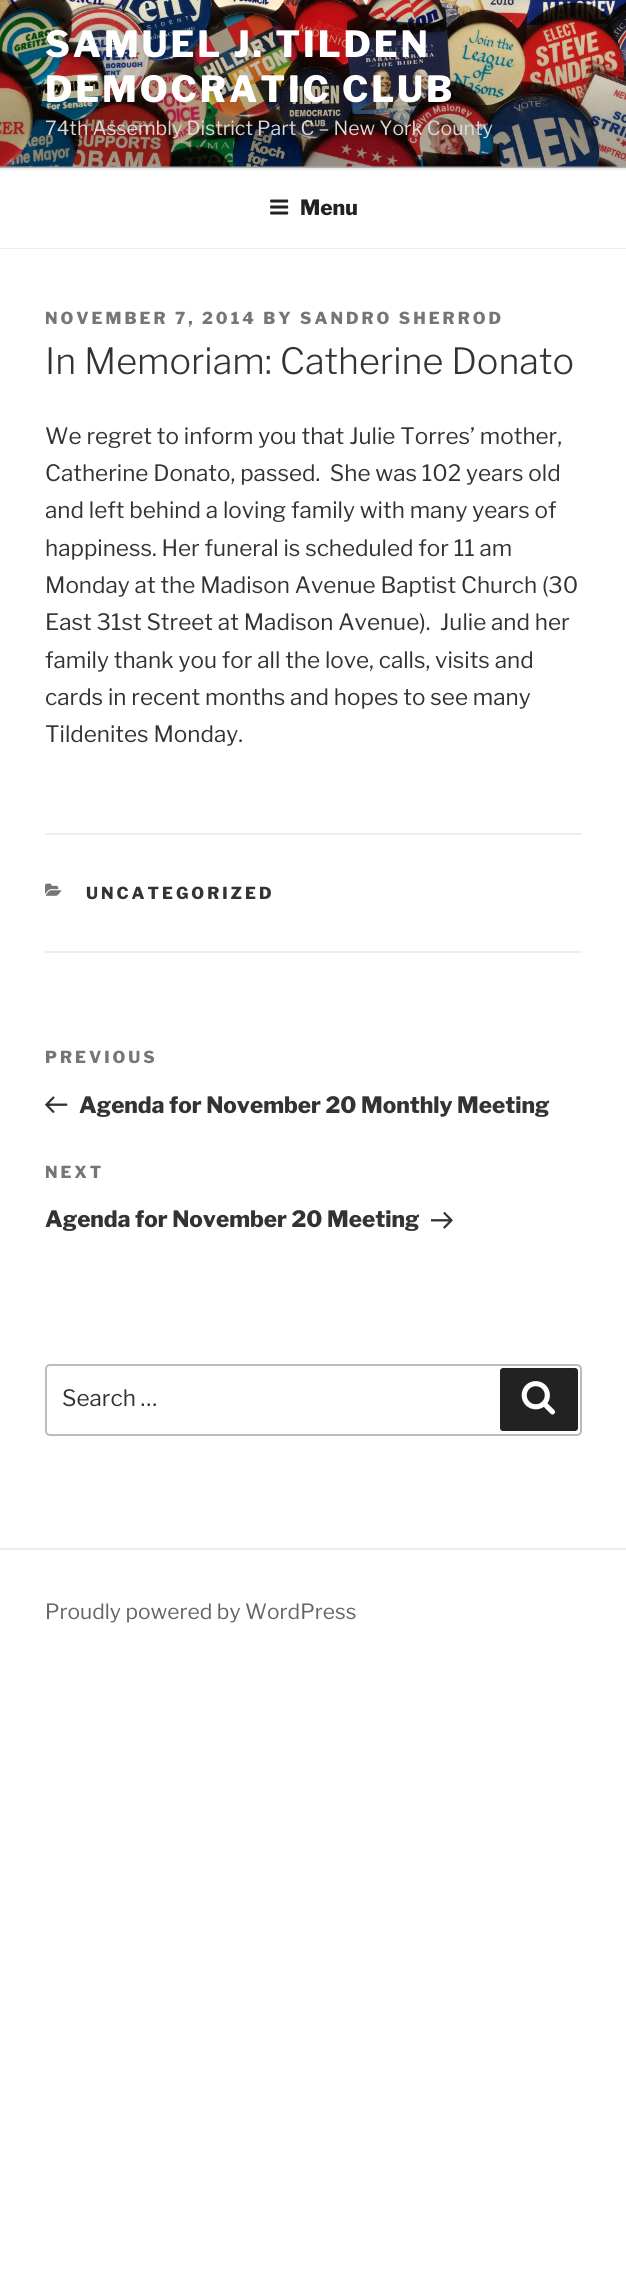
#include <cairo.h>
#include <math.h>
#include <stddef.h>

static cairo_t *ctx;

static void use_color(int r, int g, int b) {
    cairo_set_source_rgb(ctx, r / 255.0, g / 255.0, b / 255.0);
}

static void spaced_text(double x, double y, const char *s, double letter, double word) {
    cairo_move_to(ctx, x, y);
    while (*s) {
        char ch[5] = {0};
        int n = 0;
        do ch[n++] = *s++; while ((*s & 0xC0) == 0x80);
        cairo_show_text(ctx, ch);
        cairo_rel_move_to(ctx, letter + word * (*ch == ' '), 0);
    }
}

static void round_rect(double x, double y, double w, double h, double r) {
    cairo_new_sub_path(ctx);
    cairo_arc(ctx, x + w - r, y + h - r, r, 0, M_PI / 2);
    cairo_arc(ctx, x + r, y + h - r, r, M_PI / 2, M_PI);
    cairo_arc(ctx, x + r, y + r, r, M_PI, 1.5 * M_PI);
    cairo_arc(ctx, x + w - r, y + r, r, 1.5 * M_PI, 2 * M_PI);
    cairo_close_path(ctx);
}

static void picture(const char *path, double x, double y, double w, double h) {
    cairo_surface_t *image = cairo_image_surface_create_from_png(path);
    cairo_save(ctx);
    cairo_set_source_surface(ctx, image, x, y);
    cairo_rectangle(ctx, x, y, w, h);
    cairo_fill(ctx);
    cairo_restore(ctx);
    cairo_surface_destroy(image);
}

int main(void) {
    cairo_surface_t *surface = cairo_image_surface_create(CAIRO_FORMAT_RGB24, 626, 2294);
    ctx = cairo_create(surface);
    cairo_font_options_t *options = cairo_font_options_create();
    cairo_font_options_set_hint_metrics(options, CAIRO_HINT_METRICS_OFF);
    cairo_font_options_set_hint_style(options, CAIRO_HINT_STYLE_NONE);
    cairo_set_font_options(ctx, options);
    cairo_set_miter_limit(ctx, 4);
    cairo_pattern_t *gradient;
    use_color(255, 255, 255);
    cairo_paint(ctx);
    use_color(250, 250, 250);
    cairo_rectangle(ctx, 0, 166, 626, 2);
    cairo_fill(ctx);
    picture("img1.png", 0, 0, 626, 167);
    gradient = cairo_pattern_create_linear(314, 0, 314, 168);
    cairo_pattern_add_color_stop_rgba(gradient, 0, 0, 0, 0, 0);
    cairo_pattern_add_color_stop_rgba(gradient, 0.75, 0, 0, 0, 0.3);
    cairo_pattern_add_color_stop_rgba(gradient, 1, 0, 0, 0, 0.3);
    cairo_set_source(ctx, gradient);
    cairo_pattern_destroy(gradient);
    cairo_rectangle(ctx, 0, 9, 626, 159);
    cairo_fill(ctx);
    cairo_select_font_face(ctx, "Libre Franklin Thin", CAIRO_FONT_SLANT_NORMAL, CAIRO_FONT_WEIGHT_NORMAL);
    cairo_set_font_size(ctx, 36);
    use_color(255, 255, 255);
    spaced_text(45, 57, "SAMUEL J. TILDEN", 2.9, 0);
    spaced_text(45, 102, "DEMOCRATIC CLUB", 2.9, 0);
    cairo_select_font_face(ctx, "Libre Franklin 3 Thin", CAIRO_FONT_SLANT_NORMAL, CAIRO_FONT_WEIGHT_NORMAL);
    cairo_set_font_size(ctx, 19.5);
    use_color(219, 215, 214);
    cairo_move_to(ctx, 45, 135);
    cairo_show_text(ctx, "74th Assembly District Part C – New York County");
    use_color(238, 238, 238);
    cairo_rectangle(ctx, 0, 168, 626, 2);
    cairo_fill(ctx);
    cairo_rectangle(ctx, 0, 248, 626, 1);
    cairo_fill(ctx);
    picture("img2.png", 270, 199, 19, 16);
    cairo_select_font_face(ctx, "Libre Franklin Thin", CAIRO_FONT_SLANT_NORMAL, CAIRO_FONT_WEIGHT_NORMAL);
    cairo_set_font_size(ctx, 21);
    use_color(34, 34, 34);
    cairo_move_to(ctx, 300, 215);
    cairo_show_text(ctx, "Menu");
    cairo_set_font_size(ctx, 16.5);
    use_color(118, 118, 118);
    spaced_text(45, 324, "NOVEMBER 7, 2014 BY SANDRO SHERROD", 3, 0);
    cairo_select_font_face(ctx, "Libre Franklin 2 Thin", CAIRO_FONT_SLANT_NORMAL, CAIRO_FONT_WEIGHT_NORMAL);
    cairo_set_font_size(ctx, 36);
    use_color(51, 51, 51);
    cairo_move_to(ctx, 45, 374);
    cairo_show_text(ctx, "In Memoriam: Catherine Donato");
    cairo_select_font_face(ctx, "Libre Franklin 3 Thin", CAIRO_FONT_SLANT_NORMAL, CAIRO_FONT_WEIGHT_NORMAL);
    cairo_set_font_size(ctx, 22.5);
    cairo_move_to(ctx, 45, 444);
    cairo_show_text(ctx, "We regret to inform you that Julie Torres’ mother,");
    cairo_move_to(ctx, 45, 481);
    cairo_show_text(ctx, "Catherine Donato, passed.  She was 102 years old");
    cairo_move_to(ctx, 45, 518);
    cairo_show_text(ctx, "and left behind a loving family with many years of");
    cairo_move_to(ctx, 45, 556);
    cairo_show_text(ctx, "happiness. Her funeral is scheduled for 11 am");
    cairo_move_to(ctx, 45, 593);
    cairo_show_text(ctx, "Monday at the Madison Avenue Baptist Church (30");
    cairo_move_to(ctx, 45, 630);
    cairo_show_text(ctx, "East 31st Street at Madison Avenue).  Julie and her");
    cairo_move_to(ctx, 45, 668);
    cairo_show_text(ctx, "family thank you for all the love, calls, visits and");
    cairo_move_to(ctx, 45, 705);
    cairo_show_text(ctx, "cards in recent months and hopes to see many");
    cairo_move_to(ctx, 45, 742);
    cairo_show_text(ctx, "Tildenites Monday.");
    use_color(238, 238, 238);
    cairo_rectangle(ctx, 45, 833, 537, 2);
    cairo_fill(ctx);
    cairo_rectangle(ctx, 45, 951, 537, 2);
    cairo_fill(ctx);
    picture("img3.png", 45, 883, 17, 13);
    cairo_select_font_face(ctx, "Libre Franklin Thin", CAIRO_FONT_SLANT_NORMAL, CAIRO_FONT_WEIGHT_NORMAL);
    cairo_set_font_size(ctx, 16.5);
    use_color(51, 51, 51);
    spaced_text(86, 899, "UNCATEGORIZED", 3, 0);
    use_color(118, 118, 118);
    spaced_text(45, 1063, "PREVIOUS", 3, 0);
    picture("img4.png", 45, 1096, 23, 18);
    cairo_set_font_size(ctx, 22.5);
    use_color(51, 51, 51);
    cairo_move_to(ctx, 79, 1113);
    cairo_show_text(ctx, "Agenda for November 20 Monthly Meeting");
    cairo_set_font_size(ctx, 16.5);
    use_color(118, 118, 118);
    spaced_text(45, 1178, "NEXT", 3, 0);
    cairo_set_font_size(ctx, 22.5);
    use_color(51, 51, 51);
    cairo_move_to(ctx, 45, 1227);
    cairo_show_text(ctx, "Agenda for November 20 Meeting");
    picture("img5.png", 431, 1211, 22, 18);
    round_rect(46, 1365, 535, 70, 4);
    use_color(187, 187, 187);
    cairo_stroke(ctx);
    cairo_select_font_face(ctx, "Libre Franklin 3 Thin", CAIRO_FONT_SLANT_NORMAL, CAIRO_FONT_WEIGHT_NORMAL);
    use_color(51, 51, 51);
    cairo_move_to(ctx, 62, 1406);
    cairo_show_text(ctx, "Search …");
    use_color(34, 34, 34);
    round_rect(500, 1368, 78, 63, 3);
    cairo_fill(ctx);
    picture("img6.png", 521, 1381, 34, 34);
    use_color(238, 238, 238);
    cairo_rectangle(ctx, 0, 1548, 626, 2);
    cairo_fill(ctx);
    cairo_set_font_size(ctx, 21);
    use_color(102, 102, 102);
    cairo_move_to(ctx, 45, 1619);
    cairo_show_text(ctx, "Proudly powered by WordPress");
    cairo_surface_write_to_png(surface, "result.png");
    cairo_font_options_destroy(options);
    cairo_destroy(ctx);
    cairo_surface_destroy(surface);
    return 0;
}
